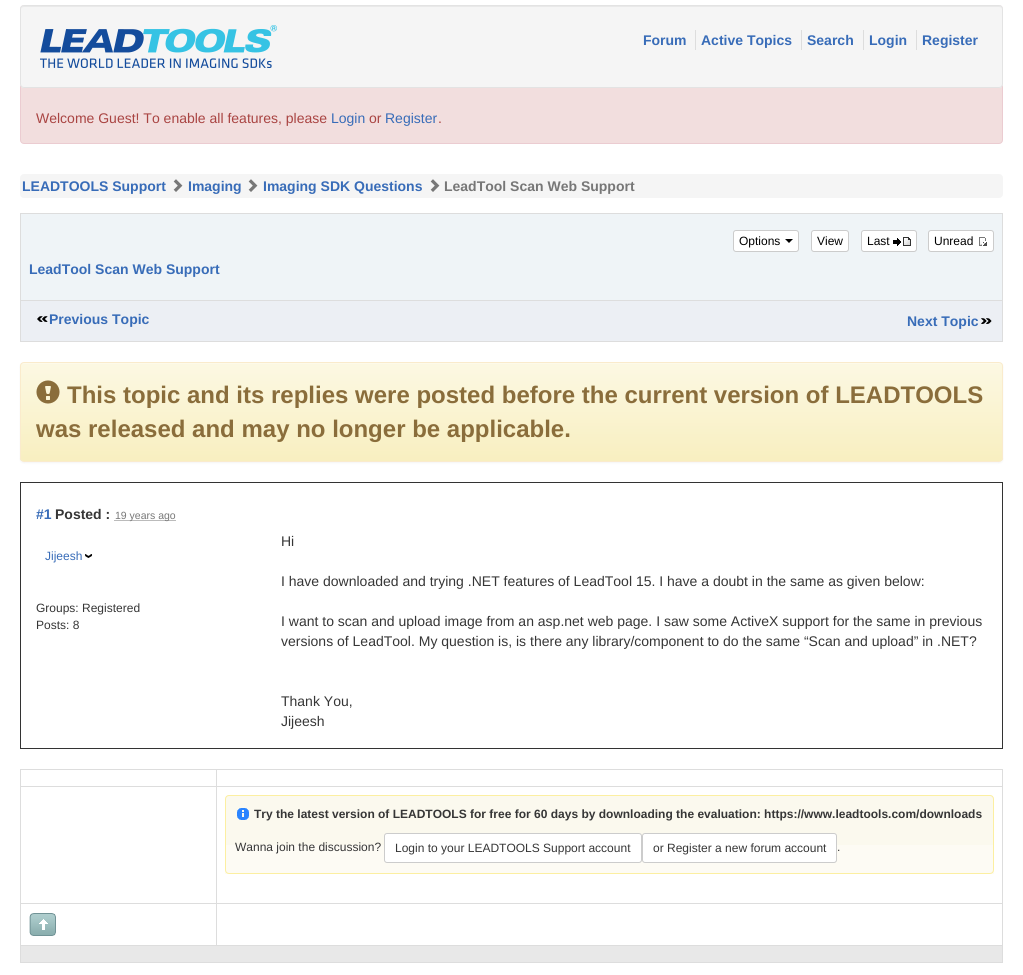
#include <cairo.h>
#include <math.h>
#include <stddef.h>

static cairo_t *ctx;

static void use_color(int r, int g, int b) {
    cairo_set_source_rgb(ctx, r / 255.0, g / 255.0, b / 255.0);
}

static void round_rect(double x, double y, double w, double h, double r) {
    cairo_new_sub_path(ctx);
    cairo_arc(ctx, x + w - r, y + h - r, r, 0, M_PI / 2);
    cairo_arc(ctx, x + r, y + h - r, r, M_PI / 2, M_PI);
    cairo_arc(ctx, x + r, y + r, r, M_PI, 1.5 * M_PI);
    cairo_arc(ctx, x + w - r, y + r, r, 1.5 * M_PI, 2 * M_PI);
    cairo_close_path(ctx);
}

static void shadow(double x, double y, double w, double h, double r, double blur, double alpha) {
    cairo_push_group_with_content(ctx, CAIRO_CONTENT_ALPHA);
    cairo_set_operator(ctx, CAIRO_OPERATOR_SOURCE);
    for (int i = 15; i >= -15 && fmin(w, h) + blur * i / 3 > 0; i -= 2) {
        double e = blur * i / 6;
        cairo_set_source_rgba(ctx, 0, 0, 0, alpha * erfc((i - 1) / 8.5) / 2);
        round_rect(x - e, y - e, w + 2 * e, h + 2 * e, fmax(0, fmin(r + e + blur * .6, fmin(w, h) / 2 + e)));
        cairo_fill(ctx);
    }
    cairo_pattern_t *soft = cairo_pop_group(ctx);
    cairo_mask(ctx, soft);
    cairo_pattern_destroy(soft);
}

static void picture(const char *path, double x, double y, double w, double h) {
    cairo_surface_t *image = cairo_image_surface_create_from_png(path);
    cairo_save(ctx);
    cairo_set_source_surface(ctx, image, x, y);
    cairo_rectangle(ctx, x, y, w, h);
    cairo_fill(ctx);
    cairo_restore(ctx);
    cairo_surface_destroy(image);
}

int main(void) {
    cairo_surface_t *surface = cairo_image_surface_create(CAIRO_FORMAT_RGB24, 1023, 975);
    ctx = cairo_create(surface);
    cairo_font_options_t *options = cairo_font_options_create();
    cairo_font_options_set_hint_metrics(options, CAIRO_HINT_METRICS_OFF);
    cairo_font_options_set_hint_style(options, CAIRO_HINT_STYLE_NONE);
    cairo_set_font_options(ctx, options);
    cairo_set_miter_limit(ctx, 4);
    cairo_pattern_t *gradient;
    use_color(255, 255, 255);
    cairo_paint(ctx);
    use_color(242, 222, 222);
    round_rect(20.5, 5.5, 982, 138, 3.5);
    cairo_fill_preserve(ctx);
    use_color(235, 204, 209);
    cairo_set_line_width(ctx, 1);
    cairo_stroke(ctx);
    use_color(245, 245, 245);
    round_rect(20, 5, 983, 83, 4);
    cairo_fill(ctx);
    use_color(233, 233, 233);
    cairo_new_path(ctx);
    cairo_move_to(ctx, 24, 7);
    cairo_line_to(ctx, 999, 7);
    cairo_curve_to(ctx, 1001, 7, 1002, 8, 1002, 10);
    cairo_curve_to(ctx, 1002, 8, 1001, 6, 999, 6);
    cairo_line_to(ctx, 24, 6);
    cairo_curve_to(ctx, 22, 6, 21, 8, 21, 10);
    cairo_curve_to(ctx, 21, 8, 22, 7, 24, 7);
    cairo_close_path(ctx);
    cairo_fill(ctx);
    round_rect(20.5, 5.5, 982, 82, 3.5);
    use_color(227, 227, 227);
    cairo_stroke(ctx);
    picture("img1.png", 40, 25, 237, 43);
    cairo_select_font_face(ctx, "Liberation Sans", CAIRO_FONT_SLANT_NORMAL, CAIRO_FONT_WEIGHT_BOLD);
    cairo_set_font_size(ctx, 14);
    use_color(56, 108, 184);
    cairo_move_to(ctx, 643, 45);
    cairo_show_text(ctx, "Forum");
    cairo_move_to(ctx, 701, 45);
    cairo_show_text(ctx, "Active Topics");
    use_color(221, 221, 221);
    cairo_rectangle(ctx, 695, 30, 1, 20);
    cairo_fill(ctx);
    use_color(56, 108, 184);
    cairo_move_to(ctx, 807, 45);
    cairo_show_text(ctx, "Search");
    use_color(221, 221, 221);
    cairo_rectangle(ctx, 801, 30, 1, 20);
    cairo_fill(ctx);
    use_color(56, 108, 184);
    cairo_move_to(ctx, 869, 45);
    cairo_show_text(ctx, "Login");
    use_color(221, 221, 221);
    cairo_rectangle(ctx, 863, 30, 1, 20);
    cairo_fill(ctx);
    use_color(56, 108, 184);
    cairo_move_to(ctx, 922, 45);
    cairo_show_text(ctx, "Register");
    use_color(221, 221, 221);
    cairo_rectangle(ctx, 916, 30, 1, 20);
    cairo_fill(ctx);
    cairo_select_font_face(ctx, "Liberation Sans", CAIRO_FONT_SLANT_NORMAL, CAIRO_FONT_WEIGHT_NORMAL);
    use_color(169, 68, 66);
    cairo_move_to(ctx, 36, 123);
    cairo_show_text(ctx, "Welcome Guest! To enable all features, please");
    use_color(56, 108, 184);
    cairo_move_to(ctx, 331, 123);
    cairo_show_text(ctx, "Login");
    use_color(169, 68, 66);
    cairo_move_to(ctx, 369, 123);
    cairo_show_text(ctx, "or");
    use_color(56, 108, 184);
    cairo_move_to(ctx, 385, 123);
    cairo_show_text(ctx, "Register");
    use_color(169, 68, 66);
    cairo_move_to(ctx, 438, 123);
    cairo_show_text(ctx, ".");
    use_color(245, 245, 245);
    round_rect(20, 174, 983, 24, 4);
    cairo_fill(ctx);
    cairo_select_font_face(ctx, "Liberation Sans", CAIRO_FONT_SLANT_NORMAL, CAIRO_FONT_WEIGHT_BOLD);
    use_color(56, 108, 184);
    cairo_move_to(ctx, 22, 191);
    cairo_show_text(ctx, "LEADTOOLS Support");
    picture("img2.png", 173, 179, 10, 13);
    cairo_move_to(ctx, 188, 191);
    cairo_show_text(ctx, "Imaging");
    picture("img2.png", 248, 179, 10, 13);
    cairo_move_to(ctx, 263, 191);
    cairo_show_text(ctx, "Imaging SDK Questions");
    picture("img2.png", 430, 179, 10, 13);
    use_color(119, 119, 119);
    cairo_move_to(ctx, 444, 191);
    cairo_show_text(ctx, "LeadTool Scan Web Support");
    use_color(221, 221, 221);
    cairo_rectangle(ctx, 20, 213, 983, 1);
    cairo_fill(ctx);
    cairo_rectangle(ctx, 1002, 213, 1, 129);
    cairo_fill(ctx);
    cairo_rectangle(ctx, 20, 341, 983, 1);
    cairo_fill(ctx);
    cairo_rectangle(ctx, 20, 213, 1, 129);
    cairo_fill(ctx);
    use_color(239, 244, 247);
    cairo_rectangle(ctx, 21, 214, 981, 86);
    cairo_fill(ctx);
    use_color(255, 255, 255);
    round_rect(733.5, 230.5, 65, 21, 2.5);
    cairo_fill_preserve(ctx);
    use_color(204, 204, 204);
    cairo_stroke(ctx);
    cairo_select_font_face(ctx, "Liberation Sans", CAIRO_FONT_SLANT_NORMAL, CAIRO_FONT_WEIGHT_NORMAL);
    cairo_set_font_size(ctx, 12);
    use_color(0, 0, 0);
    cairo_move_to(ctx, 739, 245);
    cairo_show_text(ctx, "Options");
    cairo_new_path(ctx);
    cairo_move_to(ctx, 785, 239);
    cairo_line_to(ctx, 793, 239);
    cairo_line_to(ctx, 789, 243);
    cairo_close_path(ctx);
    cairo_fill(ctx);
    use_color(255, 255, 255);
    round_rect(811.5, 230.5, 37, 21, 2.5);
    cairo_fill_preserve(ctx);
    use_color(204, 204, 204);
    cairo_stroke(ctx);
    use_color(0, 0, 0);
    cairo_move_to(ctx, 817, 245);
    cairo_show_text(ctx, "View");
    use_color(255, 255, 255);
    round_rect(861.5, 230.5, 55, 21, 2.5);
    cairo_fill_preserve(ctx);
    use_color(204, 204, 204);
    cairo_stroke(ctx);
    use_color(0, 0, 0);
    cairo_move_to(ctx, 867, 245);
    cairo_show_text(ctx, "Last");
    picture("img3.png", 893, 237, 18, 9);
    use_color(255, 255, 255);
    round_rect(928.5, 230.5, 65, 21, 2.5);
    cairo_fill_preserve(ctx);
    use_color(204, 204, 204);
    cairo_stroke(ctx);
    use_color(0, 0, 0);
    cairo_move_to(ctx, 934, 245);
    cairo_show_text(ctx, "Unread");
    picture("img4.png", 979, 237, 8, 9);
    cairo_select_font_face(ctx, "Liberation Sans", CAIRO_FONT_SLANT_NORMAL, CAIRO_FONT_WEIGHT_BOLD);
    cairo_set_font_size(ctx, 14);
    use_color(56, 108, 184);
    cairo_move_to(ctx, 29, 274);
    cairo_show_text(ctx, "LeadTool Scan Web Support");
    use_color(236, 239, 244);
    cairo_rectangle(ctx, 21, 301, 981, 40);
    cairo_fill(ctx);
    use_color(221, 221, 221);
    cairo_rectangle(ctx, 20, 300, 983, 1);
    cairo_fill(ctx);
    picture("img5.png", 37, 316, 11, 6);
    use_color(56, 108, 184);
    cairo_move_to(ctx, 49, 324);
    cairo_show_text(ctx, "Previous Topic");
    picture("img6.png", 981, 318, 11, 6);
    cairo_move_to(ctx, 907, 326);
    cairo_show_text(ctx, "Next Topic");
    use_color(0, 0, 0);
    shadow(20, 363, 983, 100, 4, 1, 0.05);
    cairo_save(ctx);
    round_rect(20, 362, 983, 100, 4);
    cairo_clip(ctx);
    gradient = cairo_pattern_create_linear(512, 363, 512, 461);
    cairo_pattern_add_color_stop_rgba(gradient, 0, 0.988, 0.973, 0.89, 1);
    cairo_pattern_add_color_stop_rgba(gradient, 1, 0.973, 0.937, 0.753, 1);
    cairo_set_source(ctx, gradient);
    cairo_pattern_destroy(gradient);
    cairo_rectangle(ctx, 20, 363, 983, 98);
    cairo_fill(ctx);
    cairo_restore(ctx);
    use_color(253, 250, 234);
    cairo_new_path(ctx);
    cairo_move_to(ctx, 24, 364);
    cairo_line_to(ctx, 999, 364);
    cairo_curve_to(ctx, 1001, 364, 1002, 365, 1002, 367);
    cairo_curve_to(ctx, 1002, 365, 1001, 363, 999, 363);
    cairo_line_to(ctx, 24, 363);
    cairo_curve_to(ctx, 22, 363, 21, 365, 21, 367);
    cairo_curve_to(ctx, 21, 365, 22, 364, 24, 364);
    cairo_close_path(ctx);
    cairo_fill(ctx);
    round_rect(20.5, 362.5, 982, 99, 3.5);
    use_color(250, 235, 204);
    cairo_stroke(ctx);
    picture("img7.png", 36, 380, 24, 24);
    cairo_set_font_size(ctx, 24);
    use_color(138, 109, 59);
    cairo_move_to(ctx, 67, 403);
    cairo_show_text(ctx, "This topic and its replies were posted before the current version of LEADTOOLS");
    cairo_move_to(ctx, 36, 437);
    cairo_show_text(ctx, "was released and may no longer be applicable.");
    cairo_rectangle(ctx, 20.5, 482.5, 982, 266);
    use_color(51, 51, 51);
    cairo_stroke(ctx);
    cairo_set_font_size(ctx, 14);
    use_color(56, 108, 184);
    cairo_move_to(ctx, 36, 519);
    cairo_show_text(ctx, "#1");
    use_color(54, 54, 54);
    cairo_move_to(ctx, 55, 519);
    cairo_show_text(ctx, "Posted :");
    cairo_new_path(ctx);
    cairo_move_to(ctx, 114.5, 520.5);
    cairo_line_to(ctx, 175.5, 520.5);
    use_color(119, 119, 119);
    cairo_set_dash(ctx, (double[]){1, 1}, 2, 0);
    cairo_stroke(ctx);
    cairo_select_font_face(ctx, "Liberation Sans", CAIRO_FONT_SLANT_NORMAL, CAIRO_FONT_WEIGHT_NORMAL);
    cairo_set_font_size(ctx, 10.5);
    cairo_move_to(ctx, 115, 519);
    cairo_show_text(ctx, "19 years ago");
    cairo_set_font_size(ctx, 12);
    use_color(56, 108, 184);
    cairo_move_to(ctx, 45, 560);
    cairo_show_text(ctx, "Jijeesh");
    picture("img8.png", 85, 554, 8, 4);
    use_color(54, 54, 54);
    cairo_move_to(ctx, 36, 612);
    cairo_show_text(ctx, "Groups: Registered");
    cairo_move_to(ctx, 36, 629);
    cairo_show_text(ctx, "Posts: 8");
    cairo_set_font_size(ctx, 14);
    cairo_move_to(ctx, 281, 546);
    cairo_show_text(ctx, "Hi");
    cairo_move_to(ctx, 281, 586);
    cairo_show_text(ctx, "I have downloaded and trying .NET features of LeadTool 15. I have a doubt in the same as given below:");
    cairo_move_to(ctx, 281, 626);
    cairo_show_text(ctx, "I want to scan and upload image from an asp.net web page. I saw some ActiveX support for the same in previous");
    cairo_move_to(ctx, 281, 646);
    cairo_show_text(ctx, "versions of LeadTool. My question is, is there any library/component to do the same “Scan and upload” in .NET?");
    cairo_move_to(ctx, 281, 706);
    cairo_show_text(ctx, "Thank You,");
    cairo_move_to(ctx, 281, 726);
    cairo_show_text(ctx, "Jijeesh");
    use_color(221, 221, 221);
    cairo_rectangle(ctx, 20, 769, 983, 1);
    cairo_fill(ctx);
    cairo_rectangle(ctx, 1002, 769, 1, 194);
    cairo_fill(ctx);
    cairo_rectangle(ctx, 20, 962, 983, 1);
    cairo_fill(ctx);
    cairo_rectangle(ctx, 20, 769, 1, 194);
    cairo_fill(ctx);
    cairo_rectangle(ctx, 216, 786, 787, 1);
    cairo_fill(ctx);
    cairo_rectangle(ctx, 216, 903, 787, 1);
    cairo_fill(ctx);
    cairo_rectangle(ctx, 20, 945, 983, 1);
    cairo_fill(ctx);
    cairo_rectangle(ctx, 216, 903, 1, 43);
    cairo_fill(ctx);
    cairo_rectangle(ctx, 20, 903, 197, 1);
    cairo_fill(ctx);
    cairo_rectangle(ctx, 216, 786, 1, 118);
    cairo_fill(ctx);
    cairo_rectangle(ctx, 20, 786, 197, 1);
    cairo_fill(ctx);
    cairo_rectangle(ctx, 216, 769, 1, 18);
    cairo_fill(ctx);
    use_color(251, 249, 238);
    round_rect(225, 795, 769, 79, 4);
    cairo_fill(ctx);
    use_color(253, 251, 244);
    cairo_rectangle(ctx, 225, 845, 769, 29);
    cairo_fill(ctx);
    round_rect(225.5, 795.5, 768, 78, 3.5);
    use_color(252, 239, 161);
    cairo_set_dash(ctx, NULL, 0, 0);
    cairo_stroke(ctx);
    picture("img9.png", 237, 808, 12, 12);
    cairo_select_font_face(ctx, "Liberation Sans", CAIRO_FONT_SLANT_NORMAL, CAIRO_FONT_WEIGHT_BOLD);
    cairo_set_font_size(ctx, 12);
    use_color(54, 54, 54);
    cairo_move_to(ctx, 254, 818);
    cairo_show_text(ctx, "Try the latest version of LEADTOOLS for free for 60 days by downloading the evaluation: https://www.leadtools.com/downloads");
    cairo_select_font_face(ctx, "Liberation Sans", CAIRO_FONT_SLANT_NORMAL, CAIRO_FONT_WEIGHT_NORMAL);
    cairo_move_to(ctx, 235, 851);
    cairo_show_text(ctx, "Wanna join the discussion?");
    use_color(255, 255, 255);
    round_rect(384.5, 833.5, 257, 29, 2.5);
    cairo_fill_preserve(ctx);
    use_color(204, 204, 204);
    cairo_stroke(ctx);
    use_color(54, 54, 54);
    cairo_move_to(ctx, 395, 852);
    cairo_show_text(ctx, "Login to your LEADTOOLS Support account");
    use_color(255, 255, 255);
    round_rect(642.5, 833.5, 194, 29, 2.5);
    cairo_fill_preserve(ctx);
    use_color(204, 204, 204);
    cairo_stroke(ctx);
    use_color(54, 54, 54);
    cairo_move_to(ctx, 653, 852);
    cairo_show_text(ctx, "or Register a new forum account");
    cairo_move_to(ctx, 837, 851);
    cairo_show_text(ctx, ".");
    picture("img10.png", 29, 913, 27, 23);
    use_color(232, 232, 232);
    cairo_rectangle(ctx, 21, 946, 981, 16);
    cairo_fill(ctx);
    cairo_surface_write_to_png(surface, "result.png");
    cairo_font_options_destroy(options);
    cairo_destroy(ctx);
    cairo_surface_destroy(surface);
    return 0;
}
